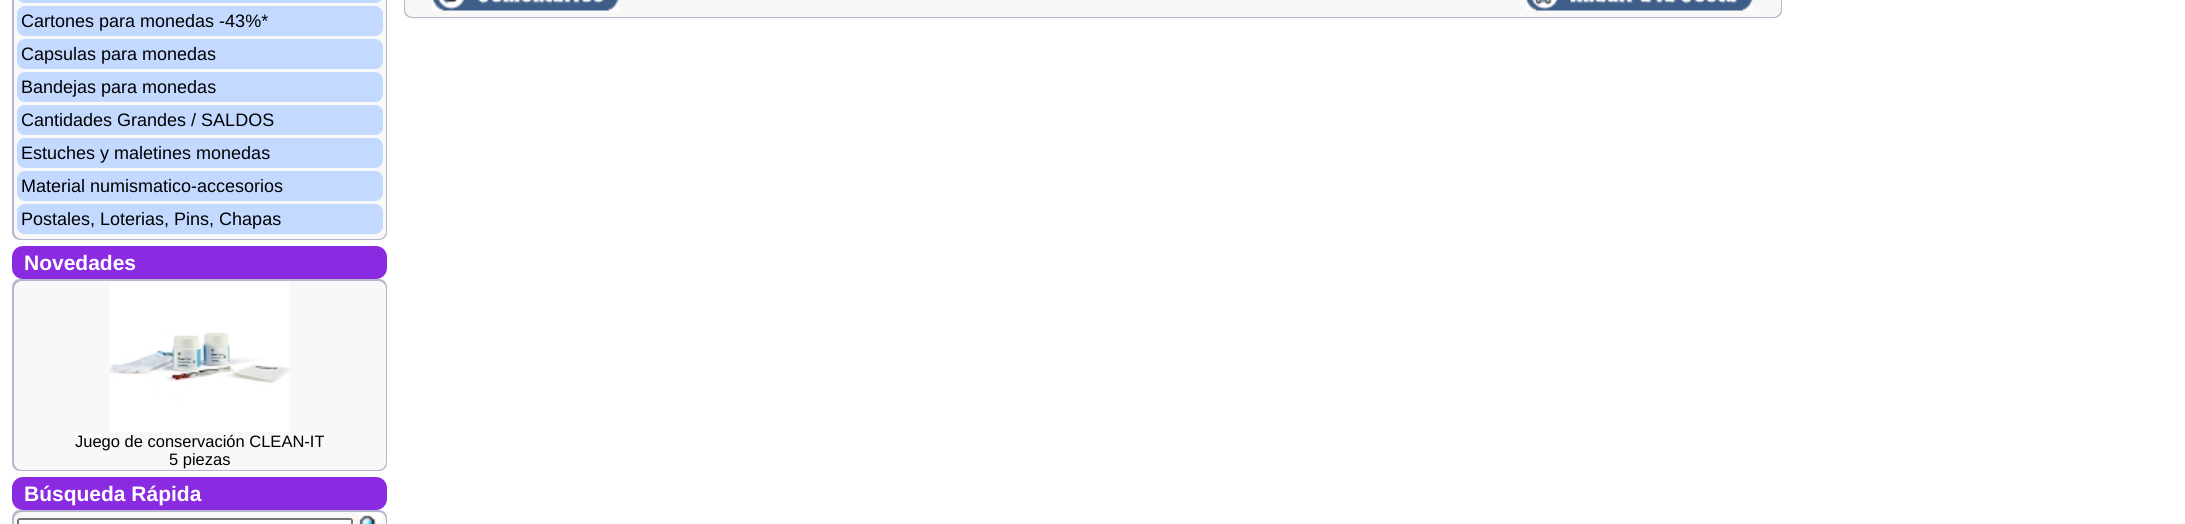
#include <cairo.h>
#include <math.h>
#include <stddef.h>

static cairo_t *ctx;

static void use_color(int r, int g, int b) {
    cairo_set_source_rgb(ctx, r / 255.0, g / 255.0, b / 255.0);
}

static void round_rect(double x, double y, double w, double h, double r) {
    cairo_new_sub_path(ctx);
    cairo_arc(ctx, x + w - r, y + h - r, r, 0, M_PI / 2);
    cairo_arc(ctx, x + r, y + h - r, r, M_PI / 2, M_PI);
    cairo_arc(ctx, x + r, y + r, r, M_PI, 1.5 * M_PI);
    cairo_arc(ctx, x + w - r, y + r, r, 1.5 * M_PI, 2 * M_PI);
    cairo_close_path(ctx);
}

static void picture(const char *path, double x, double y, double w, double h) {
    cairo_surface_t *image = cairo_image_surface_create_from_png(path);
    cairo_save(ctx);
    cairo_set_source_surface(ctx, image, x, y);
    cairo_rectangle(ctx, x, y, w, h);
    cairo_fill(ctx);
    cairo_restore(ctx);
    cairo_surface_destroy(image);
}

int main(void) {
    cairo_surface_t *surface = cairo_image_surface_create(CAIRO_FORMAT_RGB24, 2185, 524);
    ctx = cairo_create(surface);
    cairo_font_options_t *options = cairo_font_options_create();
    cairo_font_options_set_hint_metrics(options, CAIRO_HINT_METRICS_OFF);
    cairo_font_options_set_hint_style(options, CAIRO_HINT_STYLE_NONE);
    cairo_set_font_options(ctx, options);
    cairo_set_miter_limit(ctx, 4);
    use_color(255, 255, 255);
    cairo_paint(ctx);
    use_color(182, 183, 203);
    round_rect(404, -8, 1378, 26, 8);
    cairo_fill(ctx);
    use_color(248, 248, 249);
    round_rect(405, -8, 1376, 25, 8);
    cairo_fill(ctx);
    picture("img1.png", 432, 0, 187, 11);
    picture("img2.png", 1526, 0, 227, 11);
    use_color(182, 183, 203);
    round_rect(12, -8, 375, 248, 8);
    cairo_fill(ctx);
    use_color(248, 248, 249);
    round_rect(14, -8, 372, 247, 8);
    cairo_fill(ctx);
    use_color(195, 217, 255);
    round_rect(17, -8, 366, 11, 8);
    cairo_fill(ctx);
    round_rect(17, 6, 366, 30, 8);
    cairo_fill(ctx);
    cairo_select_font_face(ctx, "Liberation Sans", CAIRO_FONT_SLANT_NORMAL, CAIRO_FONT_WEIGHT_NORMAL);
    cairo_set_font_size(ctx, 18);
    use_color(0, 0, 0);
    cairo_move_to(ctx, 21, 27);
    cairo_show_text(ctx, "Cartones para monedas -43%*");
    use_color(195, 217, 255);
    round_rect(17, 39, 366, 30, 8);
    cairo_fill(ctx);
    use_color(0, 0, 0);
    cairo_move_to(ctx, 21, 60);
    cairo_show_text(ctx, "Capsulas para monedas");
    use_color(195, 217, 255);
    round_rect(17, 72, 366, 30, 8);
    cairo_fill(ctx);
    use_color(0, 0, 0);
    cairo_move_to(ctx, 21, 93);
    cairo_show_text(ctx, "Bandejas para monedas");
    use_color(195, 217, 255);
    round_rect(17, 105, 366, 30, 8);
    cairo_fill(ctx);
    use_color(0, 0, 0);
    cairo_move_to(ctx, 21, 126);
    cairo_show_text(ctx, "Cantidades Grandes / SALDOS");
    use_color(195, 217, 255);
    round_rect(17, 138, 366, 30, 8);
    cairo_fill(ctx);
    use_color(0, 0, 0);
    cairo_move_to(ctx, 21, 159);
    cairo_show_text(ctx, "Estuches y maletines monedas");
    use_color(195, 217, 255);
    round_rect(17, 171, 366, 30, 8);
    cairo_fill(ctx);
    use_color(0, 0, 0);
    cairo_move_to(ctx, 21, 192);
    cairo_show_text(ctx, "Material numismatico-accesorios");
    use_color(195, 217, 255);
    round_rect(17, 204, 366, 30, 8);
    cairo_fill(ctx);
    use_color(0, 0, 0);
    cairo_move_to(ctx, 21, 225);
    cairo_show_text(ctx, "Postales, Loterias, Pins, Chapas");
    use_color(138, 43, 226);
    round_rect(12, 246, 375, 33, 11);
    cairo_fill(ctx);
    cairo_select_font_face(ctx, "Liberation Sans", CAIRO_FONT_SLANT_NORMAL, CAIRO_FONT_WEIGHT_BOLD);
    cairo_set_font_size(ctx, 21);
    use_color(255, 255, 255);
    cairo_move_to(ctx, 24, 270);
    cairo_show_text(ctx, "Novedades");
    use_color(182, 183, 203);
    round_rect(12, 279, 375, 192, 8);
    cairo_fill(ctx);
    use_color(248, 248, 249);
    round_rect(14, 281, 372, 189, 8);
    cairo_fill(ctx);
    picture("img3.png", 109, 282, 181, 150);
    cairo_select_font_face(ctx, "Liberation Sans", CAIRO_FONT_SLANT_NORMAL, CAIRO_FONT_WEIGHT_NORMAL);
    cairo_set_font_size(ctx, 16.5);
    use_color(0, 0, 0);
    cairo_move_to(ctx, 75, 447);
    cairo_show_text(ctx, "Juego de conservación CLEAN-IT");
    cairo_move_to(ctx, 169, 465);
    cairo_show_text(ctx, "5 piezas");
    use_color(138, 43, 226);
    round_rect(12, 477, 375, 33, 11);
    cairo_fill(ctx);
    cairo_select_font_face(ctx, "Liberation Sans", CAIRO_FONT_SLANT_NORMAL, CAIRO_FONT_WEIGHT_BOLD);
    cairo_set_font_size(ctx, 21);
    use_color(255, 255, 255);
    cairo_move_to(ctx, 24, 501);
    cairo_show_text(ctx, "Búsqueda Rápida");
    use_color(182, 183, 203);
    round_rect(12, 510, 375, 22, 8);
    cairo_fill(ctx);
    use_color(248, 248, 249);
    round_rect(14, 512, 372, 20, 8);
    cairo_fill(ctx);
    use_color(255, 255, 255);
    round_rect(18, 519, 334, 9, 2);
    cairo_fill_preserve(ctx);
    use_color(118, 118, 118);
    cairo_stroke(ctx);
    picture("img4.png", 359, 513, 24, 11);
    cairo_surface_write_to_png(surface, "result.png");
    cairo_font_options_destroy(options);
    cairo_destroy(ctx);
    cairo_surface_destroy(surface);
    return 0;
}
